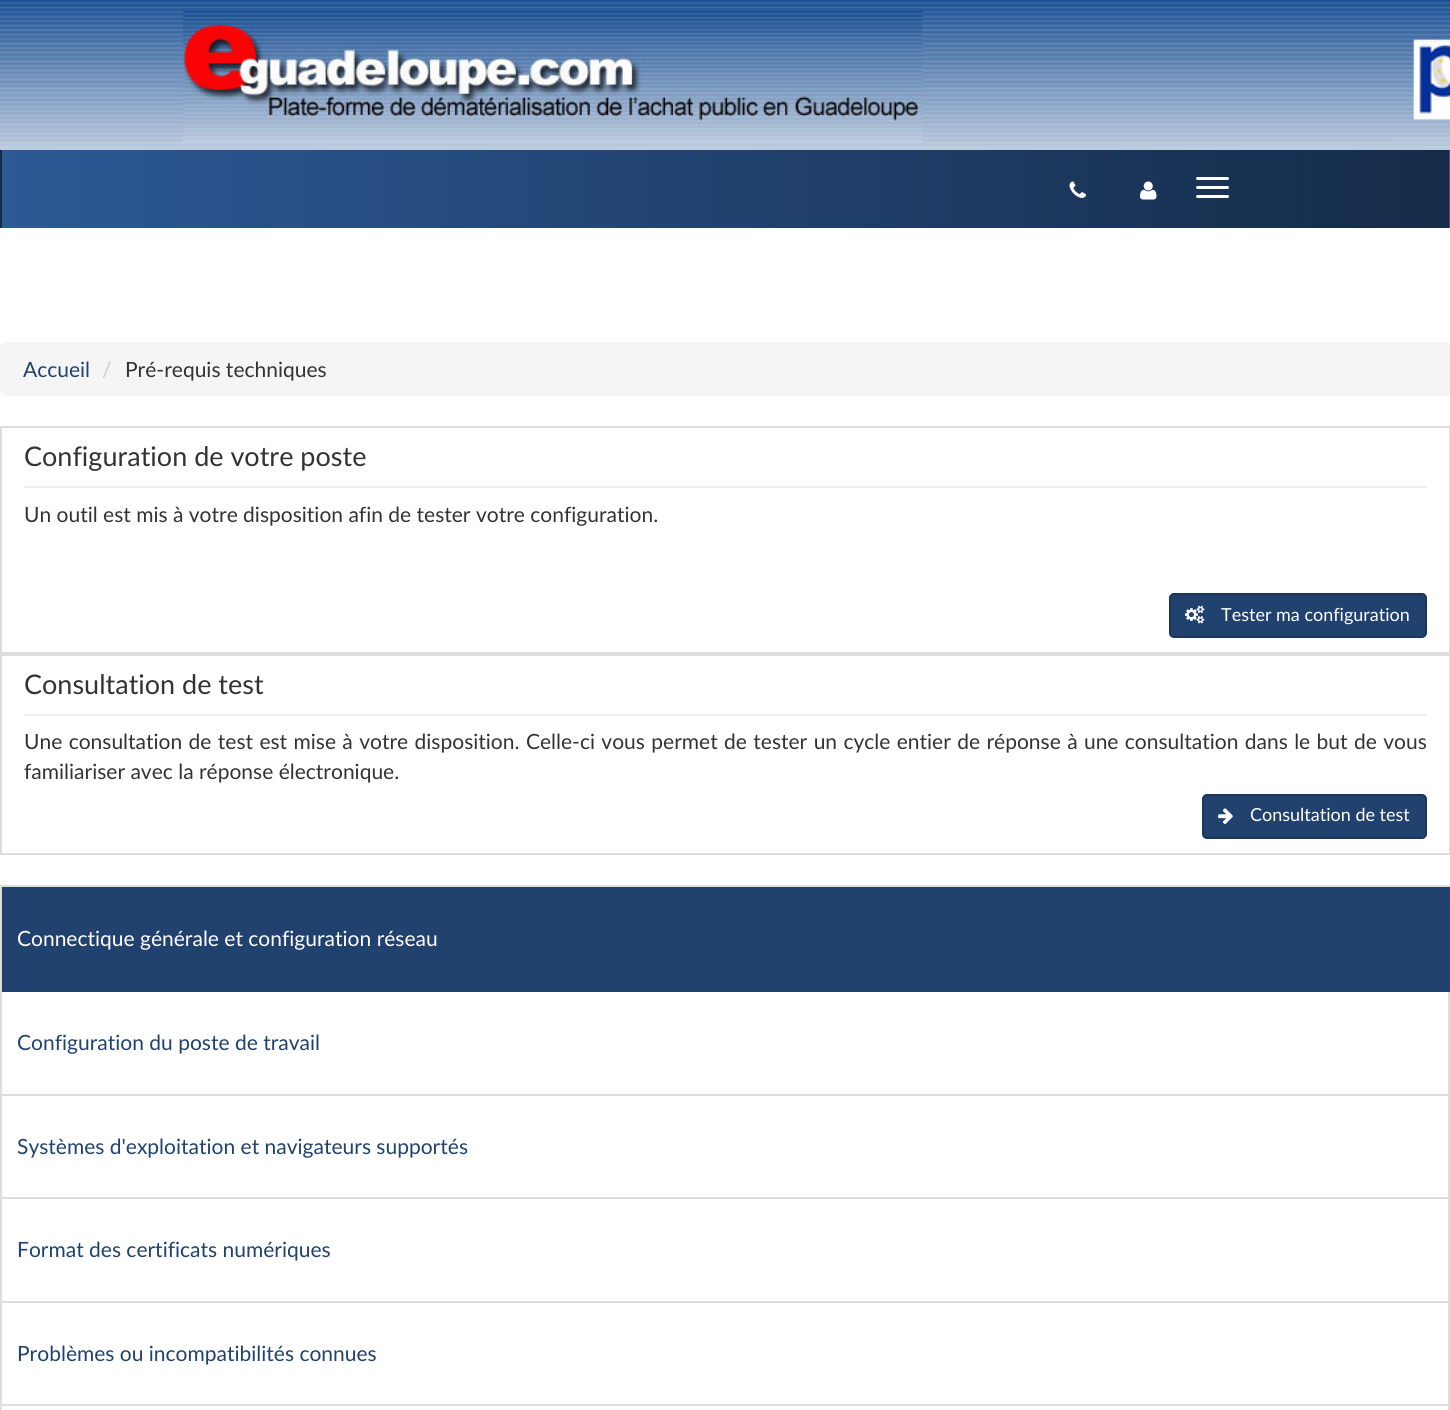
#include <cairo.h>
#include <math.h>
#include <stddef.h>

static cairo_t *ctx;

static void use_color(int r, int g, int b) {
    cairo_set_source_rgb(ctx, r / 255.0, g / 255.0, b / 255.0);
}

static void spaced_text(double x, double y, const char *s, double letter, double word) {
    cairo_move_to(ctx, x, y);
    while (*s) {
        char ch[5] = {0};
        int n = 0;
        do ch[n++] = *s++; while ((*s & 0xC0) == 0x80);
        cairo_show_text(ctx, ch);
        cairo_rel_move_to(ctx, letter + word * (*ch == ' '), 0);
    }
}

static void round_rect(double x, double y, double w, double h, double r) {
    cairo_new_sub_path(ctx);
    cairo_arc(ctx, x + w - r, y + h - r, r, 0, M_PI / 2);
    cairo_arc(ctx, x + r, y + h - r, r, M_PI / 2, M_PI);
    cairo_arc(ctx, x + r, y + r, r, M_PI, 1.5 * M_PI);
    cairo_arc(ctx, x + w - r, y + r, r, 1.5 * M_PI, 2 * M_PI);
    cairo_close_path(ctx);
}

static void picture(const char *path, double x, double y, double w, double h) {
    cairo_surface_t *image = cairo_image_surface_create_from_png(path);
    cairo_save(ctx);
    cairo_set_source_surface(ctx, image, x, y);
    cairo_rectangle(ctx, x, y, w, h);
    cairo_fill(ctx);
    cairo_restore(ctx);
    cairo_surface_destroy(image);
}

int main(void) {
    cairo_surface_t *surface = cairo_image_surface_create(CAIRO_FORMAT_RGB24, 1450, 1410);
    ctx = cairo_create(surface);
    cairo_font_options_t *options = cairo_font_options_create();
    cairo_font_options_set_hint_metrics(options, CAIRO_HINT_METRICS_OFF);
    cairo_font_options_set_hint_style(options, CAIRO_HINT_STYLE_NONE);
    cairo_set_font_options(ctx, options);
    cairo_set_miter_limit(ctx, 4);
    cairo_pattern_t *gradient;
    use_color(255, 255, 255);
    cairo_paint(ctx);
    picture("img1.png", 0, 0, 1450, 150);
    picture("img2.png", 183, 10, 740, 132);
    gradient = cairo_pattern_create_linear(-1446, 189, 1.5, 189);
    cairo_pattern_add_color_stop_rgba(gradient, 0, 0.176, 0.349, 0.588, 1);
    cairo_pattern_add_color_stop_rgba(gradient, 1, 0.082, 0.169, 0.282, 1);
    cairo_set_source(ctx, gradient);
    cairo_pattern_destroy(gradient);
    cairo_rectangle(ctx, 0, 150, 2, 78);
    cairo_fill(ctx);
    gradient = cairo_pattern_create_linear(1.5, 189, 1449, 189);
    cairo_pattern_add_color_stop_rgba(gradient, 0, 0.176, 0.349, 0.588, 1);
    cairo_pattern_add_color_stop_rgba(gradient, 1, 0.082, 0.169, 0.282, 1);
    cairo_set_source(ctx, gradient);
    cairo_pattern_destroy(gradient);
    cairo_rectangle(ctx, 2, 150, 1447, 78);
    cairo_fill(ctx);
    gradient = cairo_pattern_create_linear(1449, 189, 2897, 189);
    cairo_pattern_add_color_stop_rgba(gradient, 0, 0.176, 0.349, 0.588, 1);
    cairo_pattern_add_color_stop_rgba(gradient, 1, 0.082, 0.169, 0.282, 1);
    cairo_set_source(ctx, gradient);
    cairo_pattern_destroy(gradient);
    cairo_rectangle(ctx, 1449, 150, 1, 78);
    cairo_fill(ctx);
    picture("img3.png", 1069, 181, 17, 17);
    picture("img4.png", 1140, 181, 17, 19);
    use_color(255, 255, 255);
    round_rect(1196, 177, 33, 3, 1.5);
    cairo_fill(ctx);
    round_rect(1196, 186, 33, 3, 1.5);
    cairo_fill(ctx);
    round_rect(1196, 195, 33, 3, 1.5);
    cairo_fill(ctx);
    use_color(245, 245, 245);
    round_rect(0, 342, 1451, 54, 6);
    cairo_fill(ctx);
    cairo_select_font_face(ctx, "Lato", CAIRO_FONT_SLANT_NORMAL, CAIRO_FONT_WEIGHT_NORMAL);
    cairo_set_font_size(ctx, 21);
    use_color(33, 66, 111);
    cairo_move_to(ctx, 23, 377);
    cairo_show_text(ctx, "Accueil");
    use_color(204, 204, 204);
    cairo_move_to(ctx, 102, 377);
    cairo_show_text(ctx, "/");
    use_color(51, 51, 51);
    cairo_move_to(ctx, 125, 377);
    cairo_show_text(ctx, "Pré-requis techniques");
    cairo_rectangle(ctx, 1, 427, 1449, 226);
    use_color(221, 221, 221);
    cairo_stroke(ctx);
    use_color(238, 238, 238);
    cairo_rectangle(ctx, 24, 486, 1403, 2);
    cairo_fill(ctx);
    cairo_set_font_size(ctx, 27);
    use_color(51, 51, 51);
    cairo_move_to(ctx, 24, 466);
    cairo_show_text(ctx, "Configuration de votre poste");
    cairo_set_font_size(ctx, 21);
    cairo_move_to(ctx, 24, 522);
    cairo_show_text(ctx, "Un outil est mis à votre disposition afin de tester votre configuration.");
    use_color(33, 66, 111);
    round_rect(1170, 594, 256, 43, 4);
    cairo_fill_preserve(ctx);
    use_color(27, 54, 91);
    cairo_stroke(ctx);
    picture("img5.png", 1185, 605, 20, 19);
    cairo_set_font_size(ctx, 18);
    use_color(255, 255, 255);
    cairo_move_to(ctx, 1221, 621);
    cairo_show_text(ctx, "Tester ma configuration");
    cairo_rectangle(ctx, 1, 655, 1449, 199);
    use_color(221, 221, 221);
    cairo_stroke(ctx);
    use_color(238, 238, 238);
    cairo_rectangle(ctx, 24, 714, 1403, 2);
    cairo_fill(ctx);
    cairo_set_font_size(ctx, 27);
    use_color(51, 51, 51);
    cairo_move_to(ctx, 24, 694);
    cairo_show_text(ctx, "Consultation de test");
    cairo_set_font_size(ctx, 21);
    spaced_text(24, 749, "Une consultation de test est mise à votre disposition.", 0, 1);
    spaced_text(526, 749, "Celle-ci vous permet de tester un cycle entier de réponse à une consultation dans le but de vous", 0, 1);
    cairo_move_to(ctx, 24, 779);
    cairo_show_text(ctx, "familiariser avec la réponse électronique.");
    use_color(33, 66, 111);
    round_rect(1203, 795, 223, 43, 4);
    cairo_fill_preserve(ctx);
    use_color(27, 54, 91);
    cairo_stroke(ctx);
    picture("img6.png", 1218, 808, 15, 16);
    cairo_set_font_size(ctx, 18);
    use_color(255, 255, 255);
    cairo_move_to(ctx, 1250, 821);
    cairo_show_text(ctx, "Consultation de test");
    cairo_rectangle(ctx, 1, 886, 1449, 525);
    use_color(221, 221, 221);
    cairo_stroke(ctx);
    cairo_rectangle(ctx, 1448, 990, 1, 105);
    cairo_fill(ctx);
    use_color(33, 66, 111);
    cairo_rectangle(ctx, 2, 887, 1448, 105);
    cairo_fill(ctx);
    cairo_set_font_size(ctx, 21);
    use_color(255, 255, 255);
    cairo_move_to(ctx, 17, 946);
    cairo_show_text(ctx, "Connectique générale et configuration réseau");
    use_color(33, 66, 111);
    cairo_move_to(ctx, 17, 1050);
    cairo_show_text(ctx, "Configuration du poste de travail");
    use_color(221, 221, 221);
    cairo_rectangle(ctx, 2, 1094, 1447, 2);
    cairo_fill(ctx);
    cairo_rectangle(ctx, 1448, 1094, 1, 105);
    cairo_fill(ctx);
    use_color(33, 66, 111);
    cairo_move_to(ctx, 17, 1154);
    cairo_show_text(ctx, "Systèmes d'exploitation et navigateurs supportés");
    use_color(221, 221, 221);
    cairo_rectangle(ctx, 2, 1197, 1447, 2);
    cairo_fill(ctx);
    cairo_rectangle(ctx, 1448, 1197, 1, 105);
    cairo_fill(ctx);
    use_color(33, 66, 111);
    cairo_move_to(ctx, 17, 1257);
    cairo_show_text(ctx, "Format des certificats numériques");
    use_color(221, 221, 221);
    cairo_rectangle(ctx, 2, 1301, 1447, 2);
    cairo_fill(ctx);
    cairo_rectangle(ctx, 1448, 1301, 1, 105);
    cairo_fill(ctx);
    use_color(33, 66, 111);
    cairo_move_to(ctx, 17, 1361);
    cairo_show_text(ctx, "Problèmes ou incompatibilités connues");
    use_color(221, 221, 221);
    cairo_rectangle(ctx, 2, 1404, 1447, 2);
    cairo_fill(ctx);
    cairo_rectangle(ctx, 1448, 1404, 1, 6);
    cairo_fill(ctx);
    cairo_surface_write_to_png(surface, "result.png");
    cairo_font_options_destroy(options);
    cairo_destroy(ctx);
    cairo_surface_destroy(surface);
    return 0;
}
